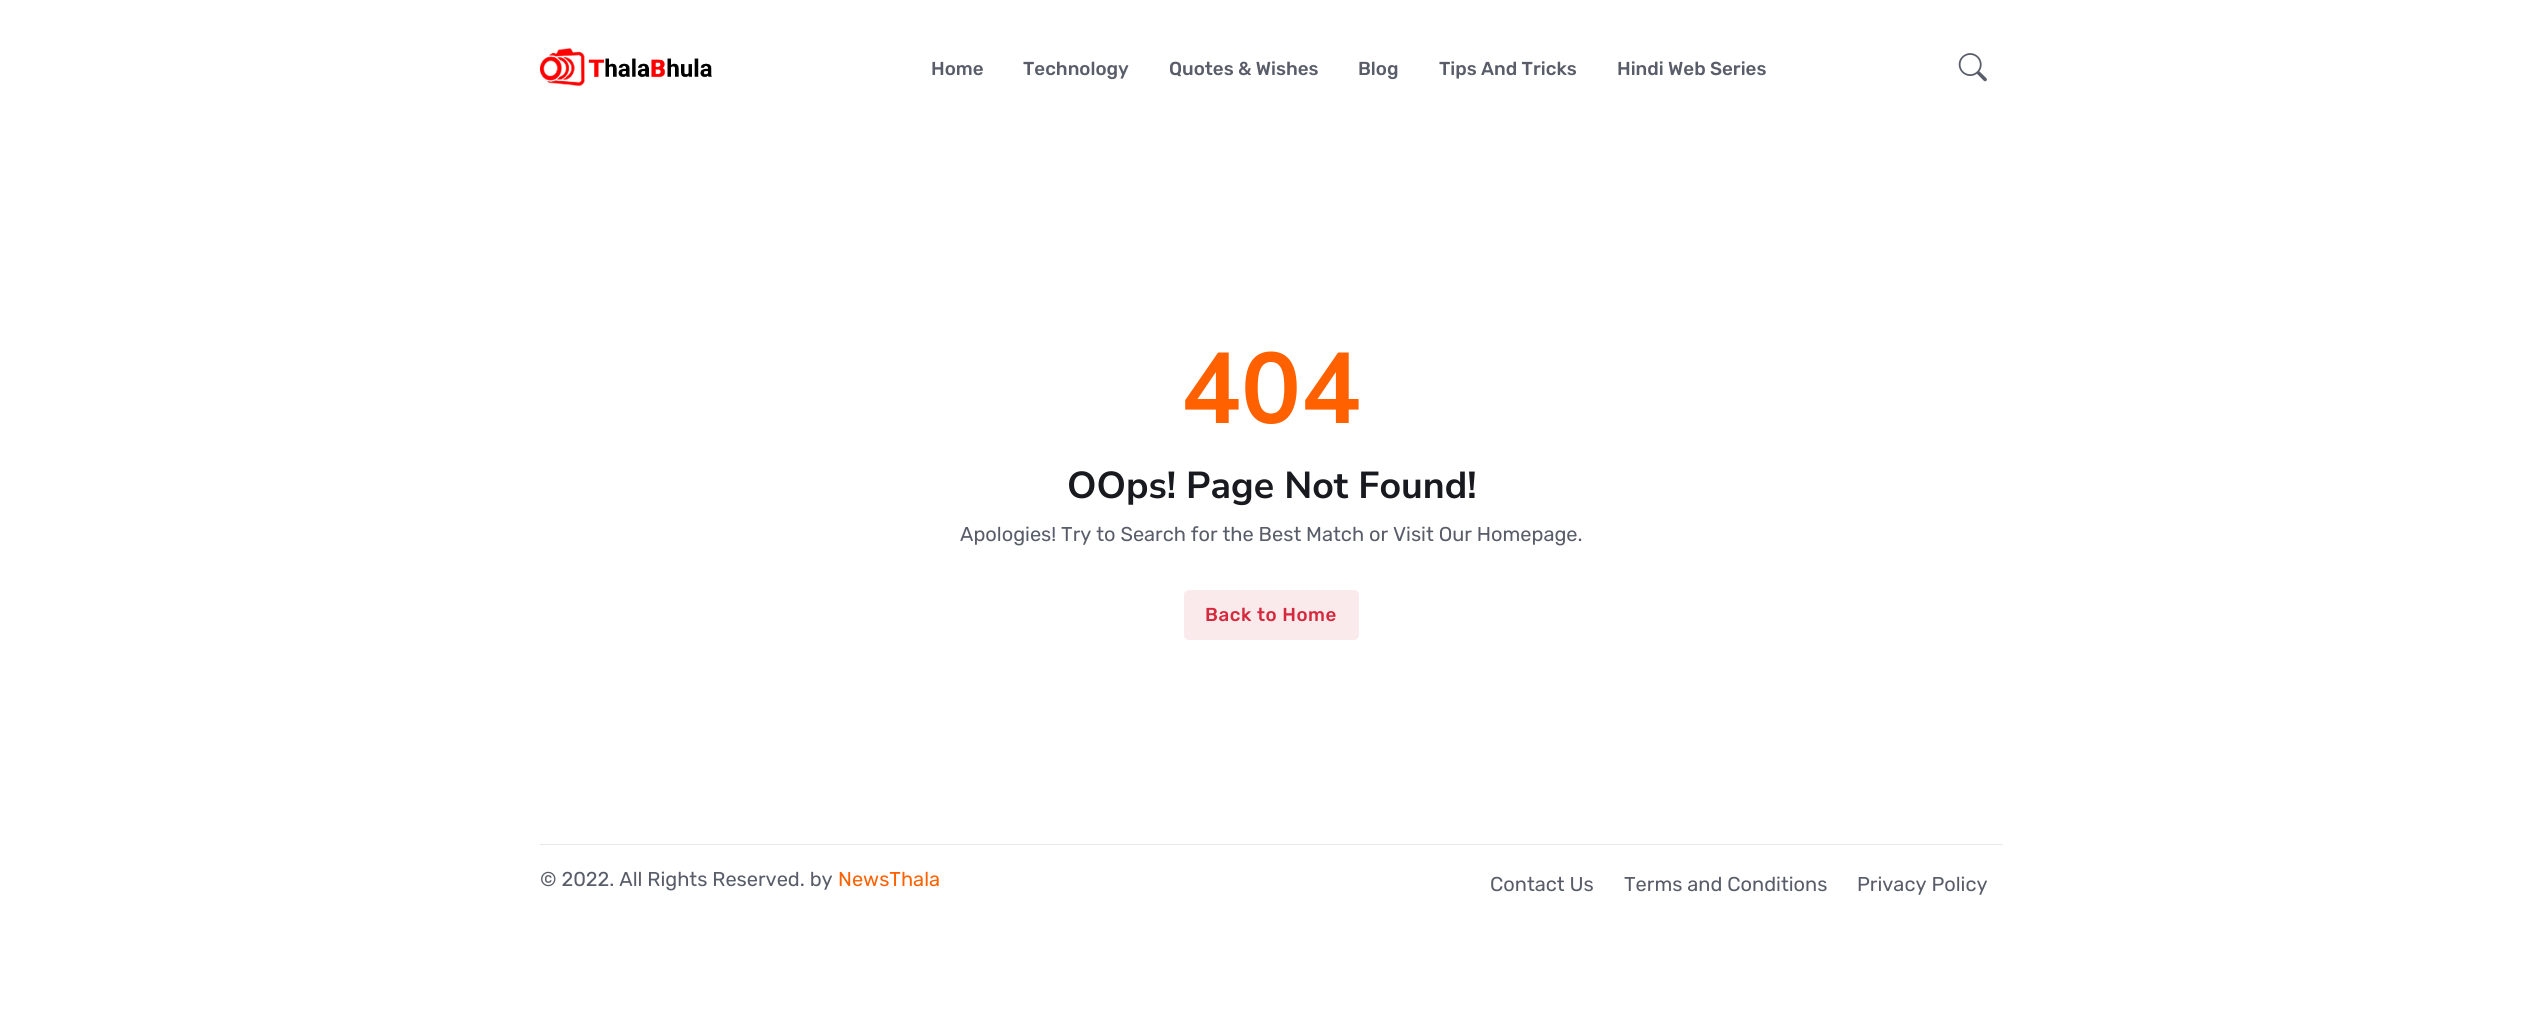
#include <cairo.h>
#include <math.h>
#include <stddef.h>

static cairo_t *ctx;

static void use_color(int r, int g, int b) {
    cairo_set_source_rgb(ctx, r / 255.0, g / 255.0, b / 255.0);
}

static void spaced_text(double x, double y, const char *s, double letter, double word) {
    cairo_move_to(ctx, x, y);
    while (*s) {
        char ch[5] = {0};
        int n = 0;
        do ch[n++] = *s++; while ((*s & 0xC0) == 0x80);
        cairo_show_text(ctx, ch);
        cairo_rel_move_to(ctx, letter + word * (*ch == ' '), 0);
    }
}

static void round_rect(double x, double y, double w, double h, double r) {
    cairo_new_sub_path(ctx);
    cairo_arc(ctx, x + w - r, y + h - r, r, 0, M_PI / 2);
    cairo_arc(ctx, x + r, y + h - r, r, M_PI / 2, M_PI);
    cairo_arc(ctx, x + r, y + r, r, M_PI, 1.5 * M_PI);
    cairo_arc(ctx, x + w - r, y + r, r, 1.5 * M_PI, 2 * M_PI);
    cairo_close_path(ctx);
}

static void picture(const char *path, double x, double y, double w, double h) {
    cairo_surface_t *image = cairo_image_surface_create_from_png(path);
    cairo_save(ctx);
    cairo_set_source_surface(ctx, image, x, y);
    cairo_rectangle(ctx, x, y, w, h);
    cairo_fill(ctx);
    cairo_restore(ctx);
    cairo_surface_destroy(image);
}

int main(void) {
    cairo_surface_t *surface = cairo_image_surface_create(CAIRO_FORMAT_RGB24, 2542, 1029);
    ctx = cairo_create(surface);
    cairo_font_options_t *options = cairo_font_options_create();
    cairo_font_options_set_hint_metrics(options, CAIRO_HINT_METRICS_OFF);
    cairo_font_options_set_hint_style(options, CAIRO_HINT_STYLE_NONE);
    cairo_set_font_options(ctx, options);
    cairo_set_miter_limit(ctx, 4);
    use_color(255, 255, 255);
    cairo_paint(ctx);
    picture("img1.png", 540, 48, 172, 38);
    cairo_select_font_face(ctx, "Rubik Medium", CAIRO_FONT_SLANT_NORMAL, CAIRO_FONT_WEIGHT_NORMAL);
    cairo_set_font_size(ctx, 18.75);
    use_color(89, 93, 105);
    cairo_move_to(ctx, 931, 75);
    cairo_show_text(ctx, "Home");
    cairo_move_to(ctx, 1023, 75);
    cairo_show_text(ctx, "Technology");
    cairo_move_to(ctx, 1169, 75);
    cairo_show_text(ctx, "Quotes & Wishes");
    cairo_move_to(ctx, 1358, 75);
    cairo_show_text(ctx, "Blog");
    cairo_move_to(ctx, 1439, 75);
    cairo_show_text(ctx, "Tips And Tricks");
    cairo_move_to(ctx, 1617, 75);
    cairo_show_text(ctx, "Hindi Web Series");
    picture("img2.png", 1958, 53, 29, 29);
    cairo_select_font_face(ctx, "Nunito Sans", CAIRO_FONT_SLANT_NORMAL, CAIRO_FONT_WEIGHT_BOLD);
    cairo_set_font_size(ctx, 100);
    use_color(255, 97, 0);
    cairo_move_to(ctx, 1181, 423);
    cairo_show_text(ctx, "404");
    cairo_set_font_size(ctx, 37.5);
    use_color(25, 26, 31);
    cairo_move_to(ctx, 1067, 498);
    cairo_show_text(ctx, "OOps! Page Not Found!");
    cairo_select_font_face(ctx, "Rubik", CAIRO_FONT_SLANT_NORMAL, CAIRO_FONT_WEIGHT_NORMAL);
    cairo_set_font_size(ctx, 20);
    use_color(89, 93, 105);
    cairo_move_to(ctx, 960, 541);
    cairo_show_text(ctx, "Apologies! Try to Search for the Best Match or Visit Our Homepage.");
    use_color(251, 234, 236);
    round_rect(1184, 590, 175, 50, 5);
    cairo_fill(ctx);
    cairo_select_font_face(ctx, "Rubik Medium", CAIRO_FONT_SLANT_NORMAL, CAIRO_FONT_WEIGHT_NORMAL);
    cairo_set_font_size(ctx, 18.75);
    use_color(214, 41, 62);
    spaced_text(1205, 621, "Back to Home", 0.6, 0);
    use_color(232, 232, 233);
    cairo_rectangle(ctx, 540, 844, 1463, 1);
    cairo_fill(ctx);
    cairo_select_font_face(ctx, "Rubik", CAIRO_FONT_SLANT_NORMAL, CAIRO_FONT_WEIGHT_NORMAL);
    cairo_set_font_size(ctx, 20);
    use_color(89, 93, 105);
    cairo_move_to(ctx, 540, 886);
    cairo_show_text(ctx, "© 2022. All Rights Reserved. by");
    use_color(255, 97, 0);
    cairo_move_to(ctx, 838, 886);
    cairo_show_text(ctx, "NewsThala");
    use_color(89, 93, 105);
    cairo_move_to(ctx, 1490, 891);
    cairo_show_text(ctx, "Contact Us");
    cairo_move_to(ctx, 1624, 891);
    cairo_show_text(ctx, "Terms and Conditions");
    cairo_move_to(ctx, 1857, 891);
    cairo_show_text(ctx, "Privacy Policy");
    cairo_surface_write_to_png(surface, "result.png");
    cairo_font_options_destroy(options);
    cairo_destroy(ctx);
    cairo_surface_destroy(surface);
    return 0;
}
